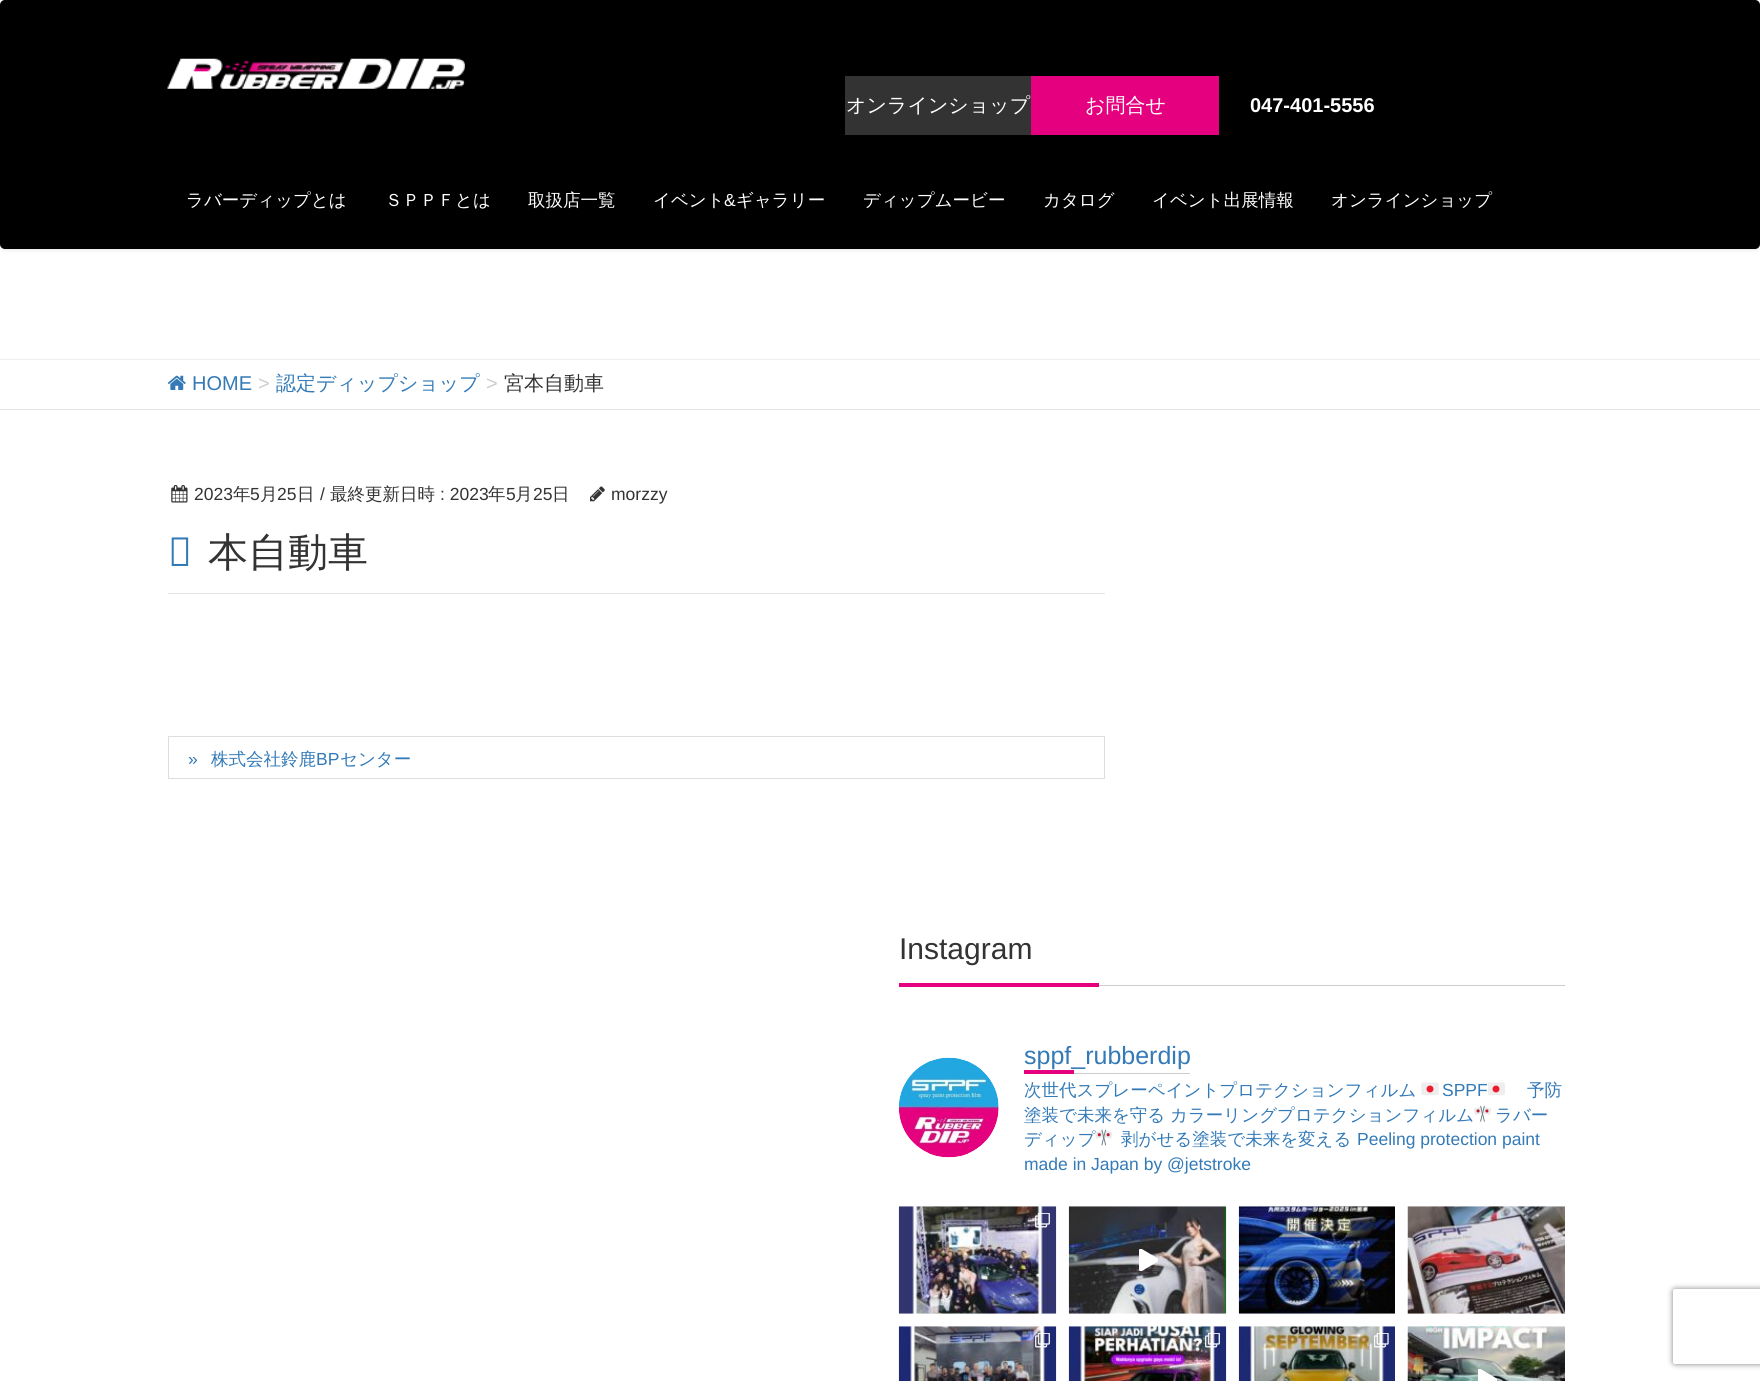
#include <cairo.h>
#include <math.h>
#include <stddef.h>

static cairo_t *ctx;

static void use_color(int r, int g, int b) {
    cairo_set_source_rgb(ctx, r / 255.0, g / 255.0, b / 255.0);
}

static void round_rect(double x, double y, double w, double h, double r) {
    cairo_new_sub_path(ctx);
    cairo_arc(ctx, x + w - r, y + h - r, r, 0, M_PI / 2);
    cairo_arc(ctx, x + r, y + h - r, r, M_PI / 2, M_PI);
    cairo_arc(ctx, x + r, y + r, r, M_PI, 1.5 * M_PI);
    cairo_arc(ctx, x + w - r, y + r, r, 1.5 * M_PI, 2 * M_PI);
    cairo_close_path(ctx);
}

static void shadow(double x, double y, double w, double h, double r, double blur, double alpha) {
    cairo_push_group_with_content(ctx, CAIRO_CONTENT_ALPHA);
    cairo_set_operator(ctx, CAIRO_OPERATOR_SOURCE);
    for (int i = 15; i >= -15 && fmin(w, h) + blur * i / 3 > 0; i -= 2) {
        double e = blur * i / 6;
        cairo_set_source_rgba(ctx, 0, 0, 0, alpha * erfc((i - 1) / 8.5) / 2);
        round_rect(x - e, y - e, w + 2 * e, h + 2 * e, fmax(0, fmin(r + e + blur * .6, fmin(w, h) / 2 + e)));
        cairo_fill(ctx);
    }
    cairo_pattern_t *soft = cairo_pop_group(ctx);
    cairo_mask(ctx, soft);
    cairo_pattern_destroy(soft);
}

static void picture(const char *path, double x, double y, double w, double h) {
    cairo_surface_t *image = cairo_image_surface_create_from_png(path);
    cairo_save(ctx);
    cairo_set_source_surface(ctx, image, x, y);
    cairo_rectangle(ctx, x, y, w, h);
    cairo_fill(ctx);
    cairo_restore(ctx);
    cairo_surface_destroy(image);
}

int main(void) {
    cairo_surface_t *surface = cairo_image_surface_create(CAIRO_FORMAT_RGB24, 1760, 1381);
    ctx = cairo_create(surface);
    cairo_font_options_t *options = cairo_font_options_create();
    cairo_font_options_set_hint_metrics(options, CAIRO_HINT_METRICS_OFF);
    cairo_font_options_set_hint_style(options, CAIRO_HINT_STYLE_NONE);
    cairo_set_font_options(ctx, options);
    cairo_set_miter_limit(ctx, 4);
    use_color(255, 255, 255);
    cairo_paint(ctx);
    use_color(0, 0, 0);
    shadow(0, 1, 1760, 249, 5, 2, 0.1);
    use_color(0, 0, 0);
    round_rect(0, 0, 1760, 249, 5);
    cairo_fill(ctx);
    picture("img1.png", 167, 58, 298, 31);
    use_color(51, 51, 51);
    cairo_rectangle(ctx, 845, 76, 186, 59);
    cairo_fill(ctx);
    cairo_select_font_face(ctx, "WenQuanYi Zen Hei Medium", CAIRO_FONT_SLANT_NORMAL, CAIRO_FONT_WEIGHT_NORMAL);
    cairo_set_font_size(ctx, 20);
    use_color(255, 255, 255);
    cairo_move_to(ctx, 846, 112);
    cairo_show_text(ctx, "オンラインショップ");
    use_color(228, 0, 127);
    cairo_rectangle(ctx, 1031, 76, 188, 59);
    cairo_fill(ctx);
    use_color(255, 255, 255);
    cairo_move_to(ctx, 1085, 112);
    cairo_show_text(ctx, "お問合せ");
    cairo_select_font_face(ctx, "Liberation Sans", CAIRO_FONT_SLANT_NORMAL, CAIRO_FONT_WEIGHT_BOLD);
    cairo_move_to(ctx, 1250, 112);
    cairo_show_text(ctx, "047-401-5556");
    cairo_select_font_face(ctx, "WenQuanYi Zen Hei Medium", CAIRO_FONT_SLANT_NORMAL, CAIRO_FONT_WEIGHT_NORMAL);
    cairo_set_font_size(ctx, 17.5);
    cairo_move_to(ctx, 186, 206);
    cairo_show_text(ctx, "ラバーディップとは");
    cairo_move_to(ctx, 385, 206);
    cairo_show_text(ctx, "ＳＰＰＦとは");
    cairo_move_to(ctx, 528, 206);
    cairo_show_text(ctx, "取扱店一覧");
    cairo_move_to(ctx, 653, 206);
    cairo_show_text(ctx, "イベント");
    cairo_select_font_face(ctx, "Liberation Sans", CAIRO_FONT_SLANT_NORMAL, CAIRO_FONT_WEIGHT_NORMAL);
    cairo_move_to(ctx, 724, 206);
    cairo_show_text(ctx, "&");
    cairo_select_font_face(ctx, "WenQuanYi Zen Hei Medium", CAIRO_FONT_SLANT_NORMAL, CAIRO_FONT_WEIGHT_NORMAL);
    cairo_move_to(ctx, 736, 206);
    cairo_show_text(ctx, "ギャラリー");
    cairo_move_to(ctx, 863, 206);
    cairo_show_text(ctx, "ディップムービー");
    cairo_move_to(ctx, 1043, 206);
    cairo_show_text(ctx, "カタログ");
    cairo_move_to(ctx, 1152, 206);
    cairo_show_text(ctx, "イベント出展情報");
    cairo_move_to(ctx, 1331, 206);
    cairo_show_text(ctx, "オンラインショップ");
    use_color(238, 238, 238);
    cairo_rectangle(ctx, 0, 359, 1760, 1);
    cairo_fill(ctx);
    use_color(229, 229, 229);
    cairo_rectangle(ctx, 0, 409, 1760, 1);
    cairo_fill(ctx);
    picture("img2.png", 167, 375, 19, 15);
    cairo_select_font_face(ctx, "Liberation Sans", CAIRO_FONT_SLANT_NORMAL, CAIRO_FONT_WEIGHT_NORMAL);
    cairo_set_font_size(ctx, 20);
    use_color(51, 122, 183);
    cairo_move_to(ctx, 192, 390);
    cairo_show_text(ctx, "HOME");
    use_color(204, 204, 204);
    cairo_move_to(ctx, 258, 390);
    cairo_show_text(ctx, ">");
    cairo_select_font_face(ctx, "WenQuanYi Zen Hei Medium", CAIRO_FONT_SLANT_NORMAL, CAIRO_FONT_WEIGHT_NORMAL);
    use_color(51, 122, 183);
    cairo_move_to(ctx, 276, 390);
    cairo_show_text(ctx, "認定ディップショップ");
    cairo_select_font_face(ctx, "Liberation Sans", CAIRO_FONT_SLANT_NORMAL, CAIRO_FONT_WEIGHT_NORMAL);
    use_color(204, 204, 204);
    cairo_move_to(ctx, 486, 390);
    cairo_show_text(ctx, ">");
    cairo_select_font_face(ctx, "WenQuanYi Zen Hei Medium", CAIRO_FONT_SLANT_NORMAL, CAIRO_FONT_WEIGHT_NORMAL);
    use_color(51, 51, 51);
    cairo_move_to(ctx, 504, 390);
    cairo_show_text(ctx, "宮本自動車");
    use_color(229, 229, 229);
    cairo_rectangle(ctx, 168, 593, 937, 1);
    cairo_fill(ctx);
    picture("img3.png", 171, 485, 17, 18);
    cairo_select_font_face(ctx, "Liberation Sans", CAIRO_FONT_SLANT_NORMAL, CAIRO_FONT_WEIGHT_NORMAL);
    cairo_set_font_size(ctx, 17.5);
    use_color(51, 51, 51);
    cairo_move_to(ctx, 194, 500);
    cairo_show_text(ctx, "2023");
    cairo_select_font_face(ctx, "WenQuanYi Zen Hei Medium", CAIRO_FONT_SLANT_NORMAL, CAIRO_FONT_WEIGHT_NORMAL);
    cairo_move_to(ctx, 233, 500);
    cairo_show_text(ctx, "年");
    cairo_select_font_face(ctx, "Liberation Sans", CAIRO_FONT_SLANT_NORMAL, CAIRO_FONT_WEIGHT_NORMAL);
    cairo_move_to(ctx, 250, 500);
    cairo_show_text(ctx, "5");
    cairo_select_font_face(ctx, "WenQuanYi Zen Hei Medium", CAIRO_FONT_SLANT_NORMAL, CAIRO_FONT_WEIGHT_NORMAL);
    cairo_move_to(ctx, 260, 500);
    cairo_show_text(ctx, "月");
    cairo_select_font_face(ctx, "Liberation Sans", CAIRO_FONT_SLANT_NORMAL, CAIRO_FONT_WEIGHT_NORMAL);
    cairo_move_to(ctx, 277, 500);
    cairo_show_text(ctx, "25");
    cairo_select_font_face(ctx, "WenQuanYi Zen Hei Medium", CAIRO_FONT_SLANT_NORMAL, CAIRO_FONT_WEIGHT_NORMAL);
    cairo_move_to(ctx, 297, 500);
    cairo_show_text(ctx, "日");
    cairo_select_font_face(ctx, "Liberation Sans", CAIRO_FONT_SLANT_NORMAL, CAIRO_FONT_WEIGHT_NORMAL);
    cairo_move_to(ctx, 320, 500);
    cairo_show_text(ctx, "/");
    cairo_select_font_face(ctx, "WenQuanYi Zen Hei Medium", CAIRO_FONT_SLANT_NORMAL, CAIRO_FONT_WEIGHT_NORMAL);
    cairo_move_to(ctx, 330, 500);
    cairo_show_text(ctx, "最終更新日時");
    cairo_select_font_face(ctx, "Liberation Sans", CAIRO_FONT_SLANT_NORMAL, CAIRO_FONT_WEIGHT_NORMAL);
    cairo_move_to(ctx, 440, 500);
    cairo_show_text(ctx, ": 2023");
    cairo_select_font_face(ctx, "WenQuanYi Zen Hei Medium", CAIRO_FONT_SLANT_NORMAL, CAIRO_FONT_WEIGHT_NORMAL);
    cairo_move_to(ctx, 488, 500);
    cairo_show_text(ctx, "年");
    cairo_select_font_face(ctx, "Liberation Sans", CAIRO_FONT_SLANT_NORMAL, CAIRO_FONT_WEIGHT_NORMAL);
    cairo_move_to(ctx, 506, 500);
    cairo_show_text(ctx, "5");
    cairo_select_font_face(ctx, "WenQuanYi Zen Hei Medium", CAIRO_FONT_SLANT_NORMAL, CAIRO_FONT_WEIGHT_NORMAL);
    cairo_move_to(ctx, 515, 500);
    cairo_show_text(ctx, "月");
    cairo_select_font_face(ctx, "Liberation Sans", CAIRO_FONT_SLANT_NORMAL, CAIRO_FONT_WEIGHT_NORMAL);
    cairo_move_to(ctx, 533, 500);
    cairo_show_text(ctx, "25");
    cairo_select_font_face(ctx, "WenQuanYi Zen Hei Medium", CAIRO_FONT_SLANT_NORMAL, CAIRO_FONT_WEIGHT_NORMAL);
    cairo_move_to(ctx, 552, 500);
    cairo_show_text(ctx, "日");
    picture("img4.png", 590, 486, 15, 16);
    cairo_select_font_face(ctx, "Liberation Sans", CAIRO_FONT_SLANT_NORMAL, CAIRO_FONT_WEIGHT_NORMAL);
    cairo_move_to(ctx, 611, 500);
    cairo_show_text(ctx, "morzzy");
    cairo_select_font_face(ctx, "Noto Sans Medium", CAIRO_FONT_SLANT_NORMAL, CAIRO_FONT_WEIGHT_NORMAL);
    cairo_set_font_size(ctx, 40);
    use_color(51, 122, 183);
    cairo_move_to(ctx, 168, 566);
    cairo_show_text(ctx, "宮");
    cairo_select_font_face(ctx, "WenQuanYi Zen Hei Medium", CAIRO_FONT_SLANT_NORMAL, CAIRO_FONT_WEIGHT_NORMAL);
    use_color(51, 51, 51);
    cairo_move_to(ctx, 208, 566);
    cairo_show_text(ctx, "本自動車");
    cairo_rectangle(ctx, 168.5, 736.5, 936, 42);
    use_color(221, 221, 221);
    cairo_set_line_width(ctx, 1);
    cairo_stroke(ctx);
    cairo_select_font_face(ctx, "Liberation Sans", CAIRO_FONT_SLANT_NORMAL, CAIRO_FONT_WEIGHT_NORMAL);
    cairo_set_font_size(ctx, 17.5);
    use_color(51, 122, 183);
    cairo_move_to(ctx, 188, 765);
    cairo_show_text(ctx, "»");
    cairo_select_font_face(ctx, "WenQuanYi Zen Hei Medium", CAIRO_FONT_SLANT_NORMAL, CAIRO_FONT_WEIGHT_NORMAL);
    cairo_move_to(ctx, 211, 765);
    cairo_show_text(ctx, "株式会社鈴鹿");
    cairo_select_font_face(ctx, "Liberation Sans", CAIRO_FONT_SLANT_NORMAL, CAIRO_FONT_WEIGHT_NORMAL);
    cairo_move_to(ctx, 316, 765);
    cairo_show_text(ctx, "BP");
    cairo_select_font_face(ctx, "WenQuanYi Zen Hei Medium", CAIRO_FONT_SLANT_NORMAL, CAIRO_FONT_WEIGHT_NORMAL);
    cairo_move_to(ctx, 340, 765);
    cairo_show_text(ctx, "センター");
    use_color(204, 204, 204);
    cairo_rectangle(ctx, 1099, 985, 466, 1);
    cairo_fill(ctx);
    cairo_select_font_face(ctx, "Liberation Sans", CAIRO_FONT_SLANT_NORMAL, CAIRO_FONT_WEIGHT_NORMAL);
    cairo_set_font_size(ctx, 30);
    use_color(51, 51, 51);
    cairo_move_to(ctx, 899, 959);
    cairo_show_text(ctx, "Instagram");
    use_color(228, 0, 127);
    cairo_rectangle(ctx, 899, 983, 200, 4);
    cairo_fill(ctx);
    picture("img5.png", 899, 1057, 100, 101);
    use_color(204, 204, 204);
    cairo_rectangle(ctx, 1074, 1073, 116, 1);
    cairo_fill(ctx);
    cairo_set_font_size(ctx, 25);
    use_color(51, 122, 183);
    cairo_move_to(ctx, 1024, 1064);
    cairo_show_text(ctx, "sppf_rubberdip");
    use_color(228, 0, 127);
    cairo_rectangle(ctx, 1024, 1070, 50, 4);
    cairo_fill(ctx);
    cairo_select_font_face(ctx, "WenQuanYi Zen Hei Medium", CAIRO_FONT_SLANT_NORMAL, CAIRO_FONT_WEIGHT_NORMAL);
    cairo_set_font_size(ctx, 17.5);
    use_color(51, 122, 183);
    cairo_move_to(ctx, 1024, 1096);
    cairo_show_text(ctx, "次世代スプレーペイントプロテクションフィルム");
    picture("img6.png", 1421, 1082, 18, 13);
    cairo_select_font_face(ctx, "Liberation Sans", CAIRO_FONT_SLANT_NORMAL, CAIRO_FONT_WEIGHT_NORMAL);
    cairo_move_to(ctx, 1442, 1096);
    cairo_show_text(ctx, "SPPF");
    picture("img7.png", 1488, 1082, 17, 13);
    cairo_select_font_face(ctx, "WenQuanYi Zen Hei Medium", CAIRO_FONT_SLANT_NORMAL, CAIRO_FONT_WEIGHT_NORMAL);
    cairo_move_to(ctx, 1527, 1096);
    cairo_show_text(ctx, "予防");
    cairo_move_to(ctx, 1024, 1121);
    cairo_show_text(ctx, "塗装で未来を守る");
    cairo_move_to(ctx, 1170, 1121);
    cairo_show_text(ctx, "カラーリングプロテクションフィルム");
    picture("img8.png", 1474, 1105, 17, 17);
    cairo_move_to(ctx, 1495, 1121);
    cairo_show_text(ctx, "ラバー");
    cairo_move_to(ctx, 1024, 1145);
    cairo_show_text(ctx, "ディップ");
    picture("img9.png", 1095, 1129, 18, 17);
    cairo_move_to(ctx, 1121, 1145);
    cairo_show_text(ctx, "剥がせる塗装で未来を変える");
    cairo_select_font_face(ctx, "Liberation Sans", CAIRO_FONT_SLANT_NORMAL, CAIRO_FONT_WEIGHT_NORMAL);
    cairo_move_to(ctx, 1357, 1145);
    cairo_show_text(ctx, "Peeling protection paint");
    cairo_move_to(ctx, 1024, 1170);
    cairo_show_text(ctx, "made in Japan by @jetstroke");
    picture("img10.png", 898, 1206, 159, 108);
    picture("img11.png", 1035, 1213, 15, 15);
    picture("img12.png", 1068, 1206, 159, 108);
    picture("img13.png", 1139, 1249, 19, 22);
    picture("img14.png", 1238, 1206, 157, 108);
    picture("img15.png", 1407, 1206, 158, 108);
    picture("img16.png", 898, 1326, 159, 55);
    picture("img17.png", 1035, 1333, 15, 15);
    picture("img18.png", 1068, 1326, 159, 55);
    picture("img19.png", 1205, 1333, 15, 15);
    picture("img20.png", 1238, 1326, 157, 55);
    picture("img21.png", 1374, 1333, 15, 15);
    picture("img22.png", 1407, 1326, 158, 55);
    picture("img23.png", 1478, 1369, 20, 12);
    cairo_save(ctx);
    cairo_set_fill_rule(ctx, CAIRO_FILL_RULE_EVEN_ODD);
    cairo_new_path(ctx);
    cairo_move_to(ctx, 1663, 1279);
    cairo_line_to(ctx, 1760, 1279);
    cairo_line_to(ctx, 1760, 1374);
    cairo_line_to(ctx, 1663, 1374);
    cairo_close_path(ctx);
    cairo_move_to(ctx, 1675.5, 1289);
    cairo_line_to(ctx, 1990.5, 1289);
    cairo_curve_to(ctx, 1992, 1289, 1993, 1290, 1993, 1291.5);
    cairo_line_to(ctx, 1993, 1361.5);
    cairo_curve_to(ctx, 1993, 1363, 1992, 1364, 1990.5, 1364);
    cairo_line_to(ctx, 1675.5, 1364);
    cairo_curve_to(ctx, 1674, 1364, 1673, 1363, 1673, 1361.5);
    cairo_line_to(ctx, 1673, 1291.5);
    cairo_curve_to(ctx, 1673, 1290, 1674, 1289, 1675.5, 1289);
    cairo_close_path(ctx);
    cairo_clip(ctx);
    use_color(128, 128, 128);
    shadow(1673, 1289, 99, 75, 2.5, 3, 1);
    cairo_restore(ctx);
    cairo_surface_write_to_png(surface, "result.png");
    cairo_font_options_destroy(options);
    cairo_destroy(ctx);
    cairo_surface_destroy(surface);
    return 0;
}
